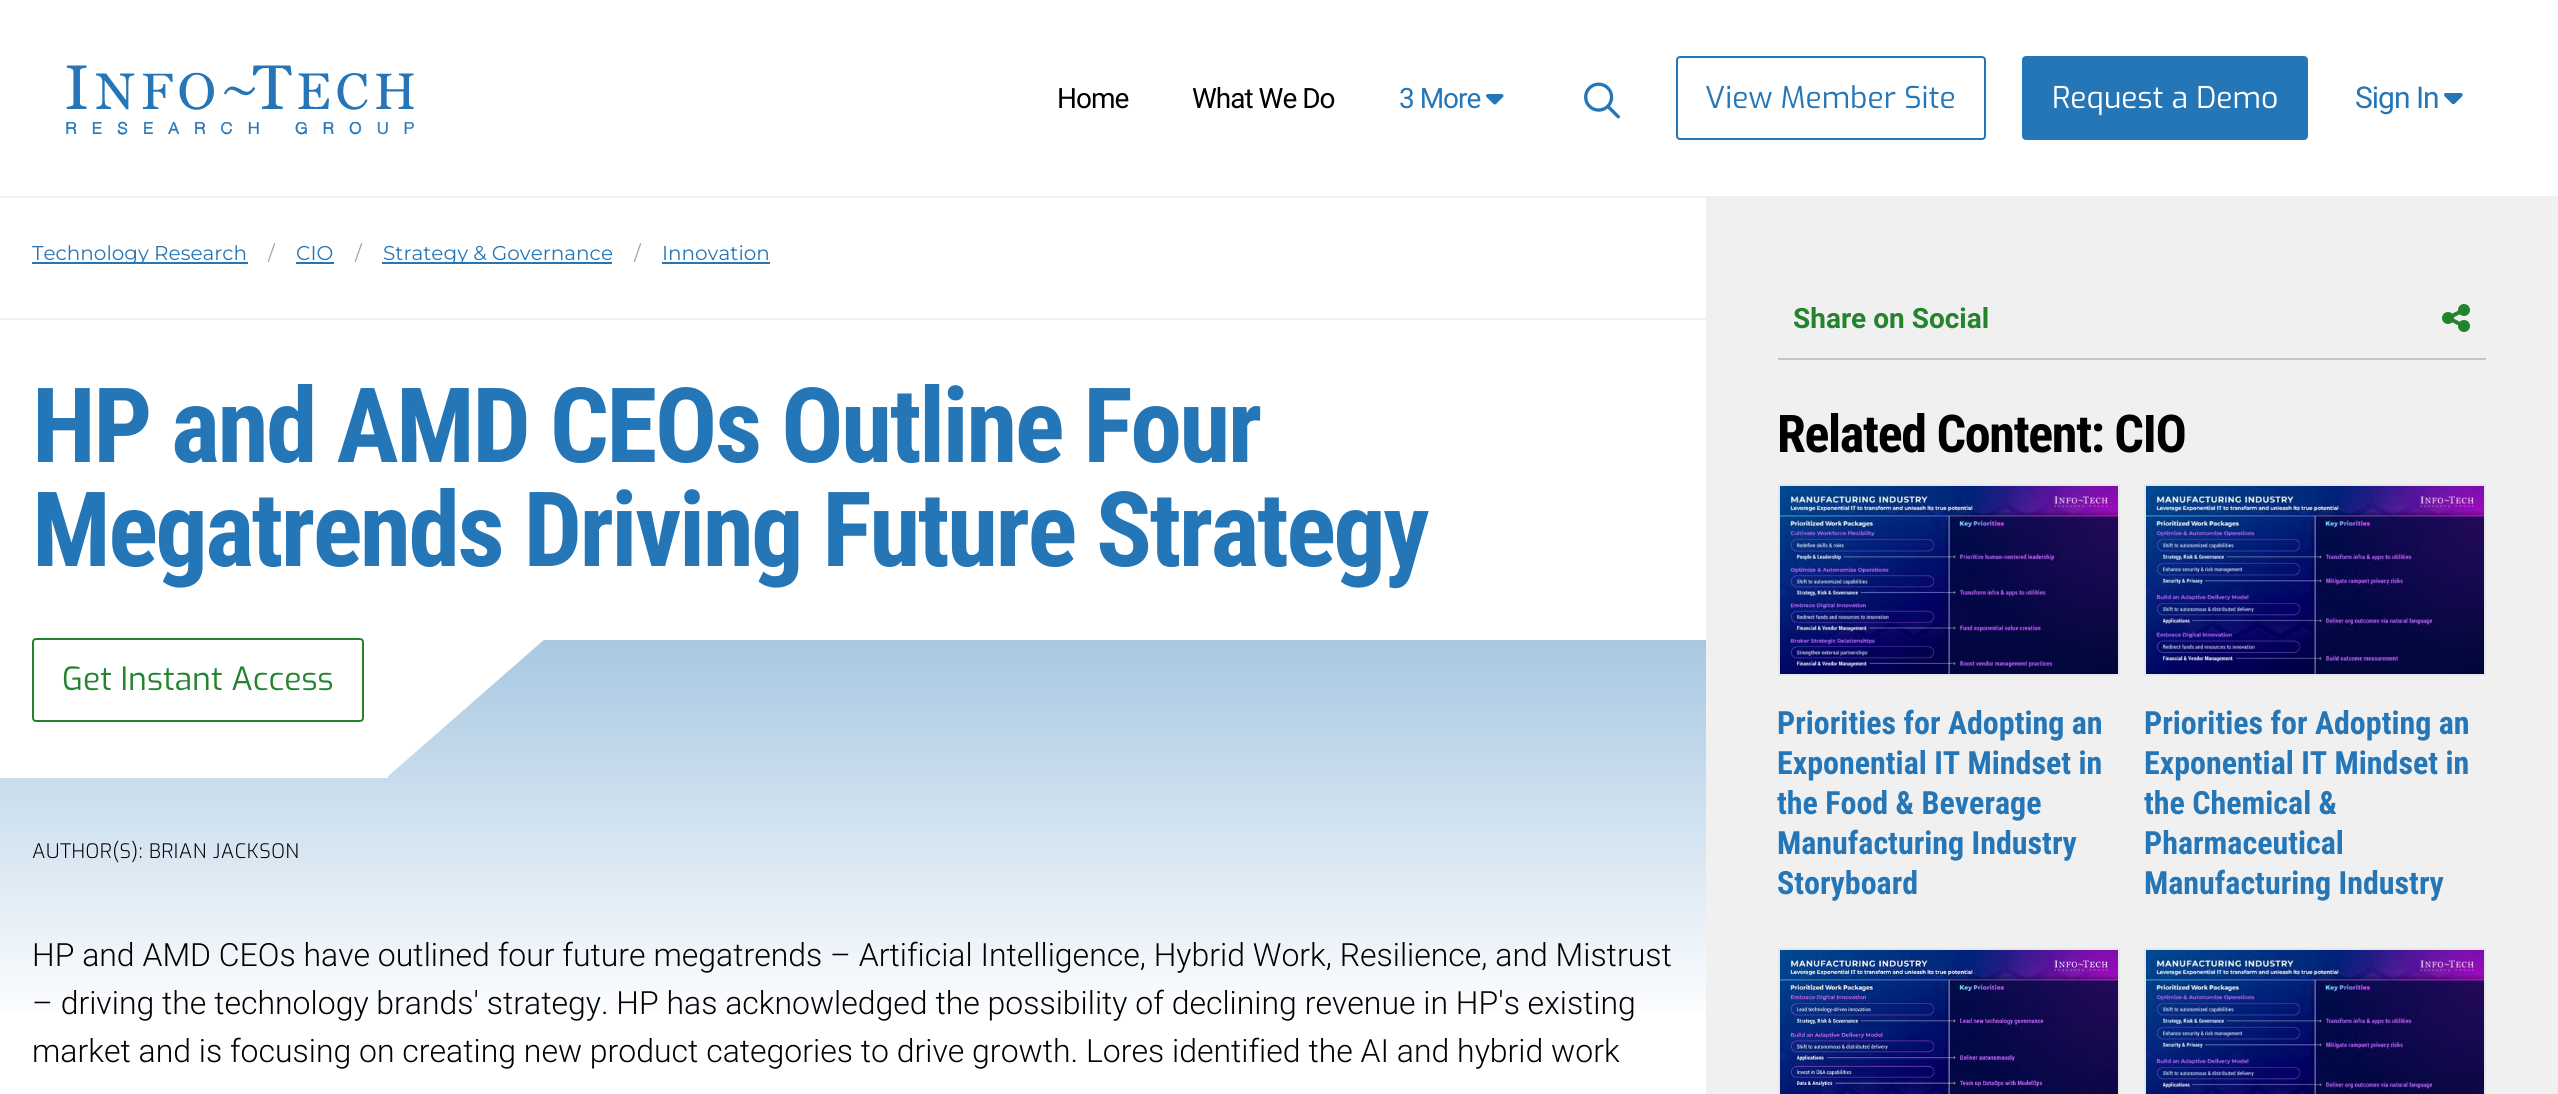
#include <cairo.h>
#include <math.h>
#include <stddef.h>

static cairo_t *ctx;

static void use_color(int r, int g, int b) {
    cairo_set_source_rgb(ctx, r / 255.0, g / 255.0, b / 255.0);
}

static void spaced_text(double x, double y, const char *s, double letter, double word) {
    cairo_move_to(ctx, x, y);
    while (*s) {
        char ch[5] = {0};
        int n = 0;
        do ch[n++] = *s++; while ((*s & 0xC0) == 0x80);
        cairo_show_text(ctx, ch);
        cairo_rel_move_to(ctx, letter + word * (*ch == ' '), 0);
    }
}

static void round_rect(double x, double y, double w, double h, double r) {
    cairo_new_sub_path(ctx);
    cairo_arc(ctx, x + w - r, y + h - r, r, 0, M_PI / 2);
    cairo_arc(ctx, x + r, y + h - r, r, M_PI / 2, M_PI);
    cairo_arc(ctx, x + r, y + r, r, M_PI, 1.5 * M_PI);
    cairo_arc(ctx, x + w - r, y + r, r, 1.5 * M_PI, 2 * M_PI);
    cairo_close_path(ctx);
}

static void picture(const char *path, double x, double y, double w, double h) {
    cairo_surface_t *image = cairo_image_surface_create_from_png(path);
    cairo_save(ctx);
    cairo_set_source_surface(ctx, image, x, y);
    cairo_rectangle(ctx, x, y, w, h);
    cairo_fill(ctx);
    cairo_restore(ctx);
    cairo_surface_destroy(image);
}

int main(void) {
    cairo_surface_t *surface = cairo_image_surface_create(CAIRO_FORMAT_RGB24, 2558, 1094);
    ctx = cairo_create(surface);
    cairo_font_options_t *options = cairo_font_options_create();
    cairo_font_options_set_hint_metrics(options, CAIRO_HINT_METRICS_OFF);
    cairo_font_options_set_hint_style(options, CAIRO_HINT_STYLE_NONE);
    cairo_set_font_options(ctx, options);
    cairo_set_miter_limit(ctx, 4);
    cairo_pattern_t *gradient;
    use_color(255, 255, 255);
    cairo_paint(ctx);
    picture("img1.png", 66, 65, 348, 70);
    cairo_select_font_face(ctx, "Roboto", CAIRO_FONT_SLANT_NORMAL, CAIRO_FONT_WEIGHT_NORMAL);
    cairo_set_font_size(ctx, 28);
    use_color(0, 0, 0);
    spaced_text(1057, 108, "Home", -1, 0);
    spaced_text(1192, 108, "What We Do", -1, 0);
    use_color(37, 118, 183);
    spaced_text(1399, 108, "3 More", -1, 0);
    picture("img2.png", 1486, 94, 18, 11);
    picture("img3.png", 1584, 82, 36, 37);
    round_rect(1677, 57, 308, 82, 3);
    cairo_stroke(ctx);
    cairo_select_font_face(ctx, "Exo", CAIRO_FONT_SLANT_NORMAL, CAIRO_FONT_WEIGHT_NORMAL);
    cairo_set_font_size(ctx, 30);
    cairo_move_to(ctx, 1705, 108);
    cairo_show_text(ctx, "View Member Site");
    round_rect(2023, 57, 284, 82, 3);
    cairo_fill_preserve(ctx);
    cairo_stroke(ctx);
    use_color(255, 255, 255);
    cairo_move_to(ctx, 2052, 108);
    cairo_show_text(ctx, "Request a Demo");
    cairo_select_font_face(ctx, "Roboto", CAIRO_FONT_SLANT_NORMAL, CAIRO_FONT_WEIGHT_NORMAL);
    use_color(37, 118, 183);
    spaced_text(2355, 108, "Sign In", -1, 0);
    picture("img4.png", 2444, 93, 19, 12);
    use_color(240, 240, 240);
    cairo_rectangle(ctx, 0, 196, 2558, 2);
    cairo_fill(ctx);
    cairo_rectangle(ctx, 0, 318, 1706, 2);
    cairo_fill(ctx);
    use_color(37, 118, 183);
    cairo_rectangle(ctx, 32, 262, 216, 2);
    cairo_fill(ctx);
    cairo_select_font_face(ctx, "Montserrat Thin", CAIRO_FONT_SLANT_NORMAL, CAIRO_FONT_WEIGHT_NORMAL);
    cairo_set_font_size(ctx, 20);
    cairo_move_to(ctx, 32, 260);
    cairo_show_text(ctx, "Technology Research");
    use_color(156, 163, 175);
    cairo_move_to(ctx, 268, 260);
    cairo_show_text(ctx, "/");
    use_color(37, 118, 183);
    cairo_move_to(ctx, 296, 260);
    cairo_show_text(ctx, "CIO");
    cairo_rectangle(ctx, 296, 262, 38, 2);
    cairo_fill(ctx);
    use_color(156, 163, 175);
    cairo_move_to(ctx, 355, 260);
    cairo_show_text(ctx, "/");
    use_color(37, 118, 183);
    cairo_rectangle(ctx, 382, 262, 230, 2);
    cairo_fill(ctx);
    cairo_move_to(ctx, 383, 260);
    cairo_show_text(ctx, "Strategy & Governance");
    use_color(156, 163, 175);
    cairo_move_to(ctx, 634, 260);
    cairo_show_text(ctx, "/");
    use_color(37, 118, 183);
    cairo_move_to(ctx, 662, 260);
    cairo_show_text(ctx, "Innovation");
    cairo_rectangle(ctx, 662, 262, 108, 2);
    cairo_fill(ctx);
    cairo_select_font_face(ctx, "Roboto Condensed", CAIRO_FONT_SLANT_NORMAL, CAIRO_FONT_WEIGHT_BOLD);
    cairo_set_font_size(ctx, 104);
    spaced_text(32, 462, "HP and AMD CEOs Outline Four", -2.6, 0);
    spaced_text(32, 566, "Megatrends Driving Future Strategy", -2.6, 0);
    gradient = cairo_pattern_create_linear(853, 640, 853, 1024);
    cairo_pattern_add_color_stop_rgba(gradient, 0, 0.659, 0.784, 0.886, 1);
    cairo_pattern_add_color_stop_rgba(gradient, 1, 1, 1, 1, 1);
    cairo_set_source(ctx, gradient);
    cairo_pattern_destroy(gradient);
    cairo_rectangle(ctx, 0, 640, 1706, 373);
    cairo_fill(ctx);
    use_color(255, 255, 255);
    cairo_rectangle(ctx, 0, 640, 388, 138);
    cairo_fill(ctx);
    round_rect(33, 639, 330, 82, 3);
    use_color(36, 132, 46);
    cairo_stroke(ctx);
    cairo_select_font_face(ctx, "Exo", CAIRO_FONT_SLANT_NORMAL, CAIRO_FONT_WEIGHT_NORMAL);
    cairo_set_font_size(ctx, 32);
    cairo_move_to(ctx, 62, 690);
    cairo_show_text(ctx, "Get Instant Access");
    use_color(255, 255, 255);
    cairo_new_path(ctx);
    cairo_move_to(ctx, 386, 638);
    cairo_line_to(ctx, 386, 778);
    cairo_line_to(ctx, 546, 638);
    cairo_close_path(ctx);
    cairo_fill(ctx);
    cairo_select_font_face(ctx, "Exo Light", CAIRO_FONT_SLANT_NORMAL, CAIRO_FONT_WEIGHT_NORMAL);
    cairo_set_font_size(ctx, 20);
    use_color(0, 0, 0);
    spaced_text(32, 858, "AUTHOR(S): BRIAN JACKSON", 0.5, 0);
    cairo_select_font_face(ctx, "Roboto Light", CAIRO_FONT_SLANT_NORMAL, CAIRO_FONT_WEIGHT_NORMAL);
    cairo_set_font_size(ctx, 32);
    cairo_move_to(ctx, 32, 966);
    cairo_show_text(ctx, "HP and AMD CEOs have outlined four future megatrends – Artificial Intelligence, Hybrid Work, Resilience, and Mistrust");
    cairo_move_to(ctx, 32, 1014);
    cairo_show_text(ctx, "– driving the technology brands' strategy. HP has acknowledged the possibility of declining revenue in HP's existing");
    cairo_move_to(ctx, 32, 1062);
    cairo_show_text(ctx, "market and is focusing on creating new product categories to drive growth. Lores identified the AI and hybrid work");
    use_color(240, 240, 240);
    cairo_rectangle(ctx, 1706, 198, 852, 896);
    cairo_fill(ctx);
    use_color(196, 196, 196);
    cairo_rectangle(ctx, 1778, 358, 708, 2);
    cairo_fill(ctx);
    cairo_select_font_face(ctx, "Roboto", CAIRO_FONT_SLANT_NORMAL, CAIRO_FONT_WEIGHT_BOLD);
    cairo_set_font_size(ctx, 28);
    use_color(36, 132, 46);
    cairo_move_to(ctx, 1793, 328);
    cairo_show_text(ctx, "Share on Social");
    picture("img5.png", 2442, 304, 28, 28);
    cairo_select_font_face(ctx, "Roboto Condensed", CAIRO_FONT_SLANT_NORMAL, CAIRO_FONT_WEIGHT_BOLD);
    cairo_set_font_size(ctx, 52);
    use_color(0, 0, 0);
    spaced_text(1777, 452, "Related Content: CIO", -1.3, 0);
    cairo_rectangle(ctx, 1779, 485, 340, 190);
    use_color(229, 231, 235);
    cairo_stroke(ctx);
    picture("img6.png", 1780, 486, 338, 188);
    cairo_set_font_size(ctx, 32);
    use_color(37, 118, 183);
    cairo_move_to(ctx, 1777, 734);
    cairo_show_text(ctx, "Priorities for Adopting an");
    cairo_move_to(ctx, 1777, 774);
    cairo_show_text(ctx, "Exponential IT Mindset in");
    cairo_move_to(ctx, 1777, 814);
    cairo_show_text(ctx, "the Food & Beverage");
    cairo_move_to(ctx, 1777, 854);
    cairo_show_text(ctx, "Manufacturing Industry");
    cairo_move_to(ctx, 1777, 894);
    cairo_show_text(ctx, "Storyboard");
    cairo_rectangle(ctx, 2145, 485, 340, 190);
    use_color(229, 231, 235);
    cairo_stroke(ctx);
    picture("img7.png", 2146, 486, 338, 188);
    use_color(37, 118, 183);
    cairo_move_to(ctx, 2144, 734);
    cairo_show_text(ctx, "Priorities for Adopting an");
    cairo_move_to(ctx, 2144, 774);
    cairo_show_text(ctx, "Exponential IT Mindset in");
    cairo_move_to(ctx, 2144, 814);
    cairo_show_text(ctx, "the Chemical &");
    cairo_move_to(ctx, 2144, 854);
    cairo_show_text(ctx, "Pharmaceutical");
    cairo_move_to(ctx, 2144, 894);
    cairo_show_text(ctx, "Manufacturing Industry");
    cairo_rectangle(ctx, 1779, 949, 340, 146);
    use_color(229, 231, 235);
    cairo_stroke(ctx);
    picture("img8.png", 1780, 950, 338, 144);
    cairo_rectangle(ctx, 2145, 949, 340, 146);
    cairo_stroke(ctx);
    picture("img9.png", 2146, 950, 338, 144);
    cairo_surface_write_to_png(surface, "result.png");
    cairo_font_options_destroy(options);
    cairo_destroy(ctx);
    cairo_surface_destroy(surface);
    return 0;
}
